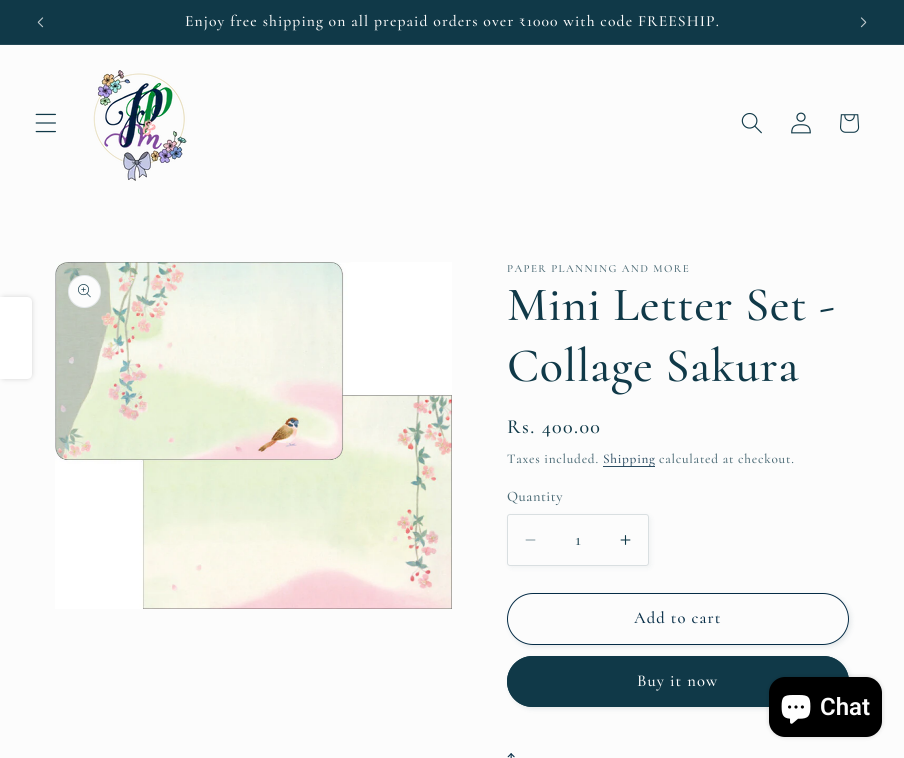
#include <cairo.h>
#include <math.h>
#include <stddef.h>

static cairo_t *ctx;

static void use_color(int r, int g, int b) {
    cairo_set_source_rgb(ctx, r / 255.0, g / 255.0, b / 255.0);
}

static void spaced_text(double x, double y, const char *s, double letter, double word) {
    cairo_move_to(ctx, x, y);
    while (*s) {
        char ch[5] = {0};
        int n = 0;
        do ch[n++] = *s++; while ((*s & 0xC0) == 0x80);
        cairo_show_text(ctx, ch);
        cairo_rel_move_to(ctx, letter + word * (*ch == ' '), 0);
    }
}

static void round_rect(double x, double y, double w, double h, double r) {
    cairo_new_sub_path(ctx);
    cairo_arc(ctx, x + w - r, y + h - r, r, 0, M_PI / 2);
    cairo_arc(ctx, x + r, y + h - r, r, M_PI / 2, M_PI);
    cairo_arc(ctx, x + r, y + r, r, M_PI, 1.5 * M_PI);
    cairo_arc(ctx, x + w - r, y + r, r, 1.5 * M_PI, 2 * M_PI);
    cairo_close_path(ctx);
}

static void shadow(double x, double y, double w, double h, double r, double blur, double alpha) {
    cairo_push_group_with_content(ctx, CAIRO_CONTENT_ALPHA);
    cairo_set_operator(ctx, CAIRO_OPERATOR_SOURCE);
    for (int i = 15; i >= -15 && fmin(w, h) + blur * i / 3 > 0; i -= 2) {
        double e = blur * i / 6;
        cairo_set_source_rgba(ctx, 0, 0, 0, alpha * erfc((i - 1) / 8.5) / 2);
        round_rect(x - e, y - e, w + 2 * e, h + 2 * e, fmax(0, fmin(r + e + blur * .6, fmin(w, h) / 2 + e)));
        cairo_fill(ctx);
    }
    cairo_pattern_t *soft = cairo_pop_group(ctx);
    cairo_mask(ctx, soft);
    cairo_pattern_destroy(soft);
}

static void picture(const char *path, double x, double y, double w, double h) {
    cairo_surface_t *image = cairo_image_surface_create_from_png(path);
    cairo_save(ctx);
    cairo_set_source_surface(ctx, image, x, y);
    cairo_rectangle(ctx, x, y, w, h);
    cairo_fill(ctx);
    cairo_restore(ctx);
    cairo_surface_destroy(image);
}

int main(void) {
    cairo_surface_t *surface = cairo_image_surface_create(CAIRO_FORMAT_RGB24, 904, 758);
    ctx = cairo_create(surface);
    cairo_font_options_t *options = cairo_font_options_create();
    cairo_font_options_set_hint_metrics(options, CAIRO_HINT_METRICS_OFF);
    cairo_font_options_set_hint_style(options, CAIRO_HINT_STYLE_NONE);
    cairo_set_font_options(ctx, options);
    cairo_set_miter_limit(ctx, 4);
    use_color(252, 252, 252);
    cairo_paint(ctx);
    use_color(16, 57, 72);
    cairo_rectangle(ctx, 0, 0, 904, 44);
    cairo_fill(ctx);
    use_color(35, 73, 86);
    cairo_rectangle(ctx, 0, 44, 904, 1);
    cairo_fill(ctx);
    picture("img1.png", 37, 17, 7, 11);
    cairo_select_font_face(ctx, "Cormorant Medium", CAIRO_FONT_SLANT_NORMAL, CAIRO_FONT_WEIGHT_NORMAL);
    cairo_set_font_size(ctx, 15.6);
    use_color(252, 252, 252);
    spaced_text(185, 26, "Enjoy free shipping on all prepaid orders over ₹1000 with code FREESHIP.", 1.1, 0);
    picture("img2.png", 860, 17, 7, 11);
    picture("img3.png", 35, 113, 21, 20);
    picture("img4.png", 93, 70, 94, 111);
    picture("img5.png", 741, 112, 21, 22);
    picture("img6.png", 791, 112, 20, 22);
    picture("img7.png", 840, 114, 20, 19);
    use_color(211, 211, 211);
    shadow(0, 297, 32, 82, 5, 2.5, 1);
    use_color(255, 255, 255);
    cairo_new_path(ctx);
    cairo_move_to(ctx, 0, 297);
    cairo_line_to(ctx, 27, 297);
    cairo_curve_to(ctx, 30, 297, 32, 299, 32, 302);
    cairo_line_to(ctx, 32, 374);
    cairo_curve_to(ctx, 32, 377, 30, 379, 27, 379);
    cairo_line_to(ctx, 0, 379);
    cairo_close_path(ctx);
    cairo_fill(ctx);
    picture("img8.png", 55, 262, 397, 347);
    use_color(252, 252, 252);
    cairo_arc(ctx, 84.5, 291.5, 16.5, 0, 2 * M_PI);
    cairo_fill(ctx);
    cairo_arc(ctx, 84.5, 291.5, 16, 0, 2 * M_PI);
    cairo_set_source_rgba(ctx, 0.063, 0.224, 0.282, 0.1);
    cairo_set_line_width(ctx, 1);
    cairo_stroke(ctx);
    picture("img9.png", 78, 284, 13, 14);
    cairo_set_font_size(ctx, 11);
    use_color(75, 106, 117);
    spaced_text(507, 272, "PAPER PLANNING AND MORE", 1.4, 0);
    cairo_set_font_size(ctx, 48);
    use_color(16, 57, 72);
    spaced_text(507, 320, "Mini Letter Set -", 0.75, 0);
    spaced_text(507, 381, "Collage Sakura", 0.75, 0);
    cairo_set_font_size(ctx, 20);
    spaced_text(507, 433, "Rs. 400.00", 1.4, 0);
    cairo_set_font_size(ctx, 13.25);
    use_color(75, 106, 117);
    spaced_text(507, 463, "Taxes included.", 0.75, 0);
    use_color(42, 75, 97);
    cairo_rectangle(ctx, 603, 466, 52, 1);
    cairo_fill(ctx);
    use_color(41, 74, 96);
    spaced_text(603, 463, "Shipping", 0.75, 0);
    use_color(75, 106, 117);
    spaced_text(659, 463, "calculated at checkout.", 0.75, 0);
    cairo_set_font_size(ctx, 14.5);
    spaced_text(507, 501, "Quantity", 0.5, 0);
    use_color(16, 57, 72);
    shadow(509, 516, 142, 52, 3, 2.5, 0.05);
    use_color(252, 252, 252);
    round_rect(507, 514, 142, 52, 3);
    cairo_fill(ctx);
    picture("img10.png", 525, 539, 11, 2);
    picture("img11.png", 620, 535, 11, 10);
    round_rect(507.5, 514.5, 141, 51, 2.5);
    use_color(217, 223, 225);
    cairo_stroke(ctx);
    cairo_set_font_size(ctx, 18);
    use_color(51, 86, 99);
    cairo_move_to(ctx, 575, 545);
    cairo_show_text(ctx, "1");
    use_color(16, 57, 72);
    shadow(509, 595, 342, 52, 26, 2.5, 0.1);
    use_color(252, 252, 252);
    round_rect(507, 593, 342, 52, 26);
    cairo_fill(ctx);
    round_rect(507.5, 593.5, 341, 51, 25.5);
    cairo_stroke(ctx);
    round_rect(507.5, 593.5, 341, 51, 25.5);
    use_color(5, 44, 70);
    cairo_stroke(ctx);
    cairo_set_font_size(ctx, 16.5);
    spaced_text(634, 623, "Add to cart", 1.1, 0);
    use_color(16, 57, 72);
    shadow(509, 658, 342, 51, 25.5, 2.5, 0.1);
    use_color(16, 57, 72);
    round_rect(507, 656, 342, 51, 25.5);
    cairo_fill(ctx);
    round_rect(507.5, 656.5, 341, 50, 25);
    cairo_stroke(ctx);
    use_color(252, 252, 252);
    spaced_text(637, 686, "Buy it now", 1.1, 0);
    picture("img12.png", 507, 753, 8, 5);
    use_color(0, 0, 0);
    shadow(769, 677, 113, 60, 16, 2.5, 0.15);
    use_color(0, 0, 0);
    round_rect(769, 677, 113, 60, 16);
    cairo_fill(ctx);
    picture("img13.png", 781, 695, 30, 29);
    cairo_select_font_face(ctx, "Roboto SemiBold", CAIRO_FONT_SLANT_NORMAL, CAIRO_FONT_WEIGHT_NORMAL);
    cairo_set_font_size(ctx, 24);
    use_color(252, 252, 252);
    cairo_move_to(ctx, 820, 715);
    cairo_show_text(ctx, "Chat");
    cairo_surface_write_to_png(surface, "result.png");
    cairo_font_options_destroy(options);
    cairo_destroy(ctx);
    cairo_surface_destroy(surface);
    return 0;
}
